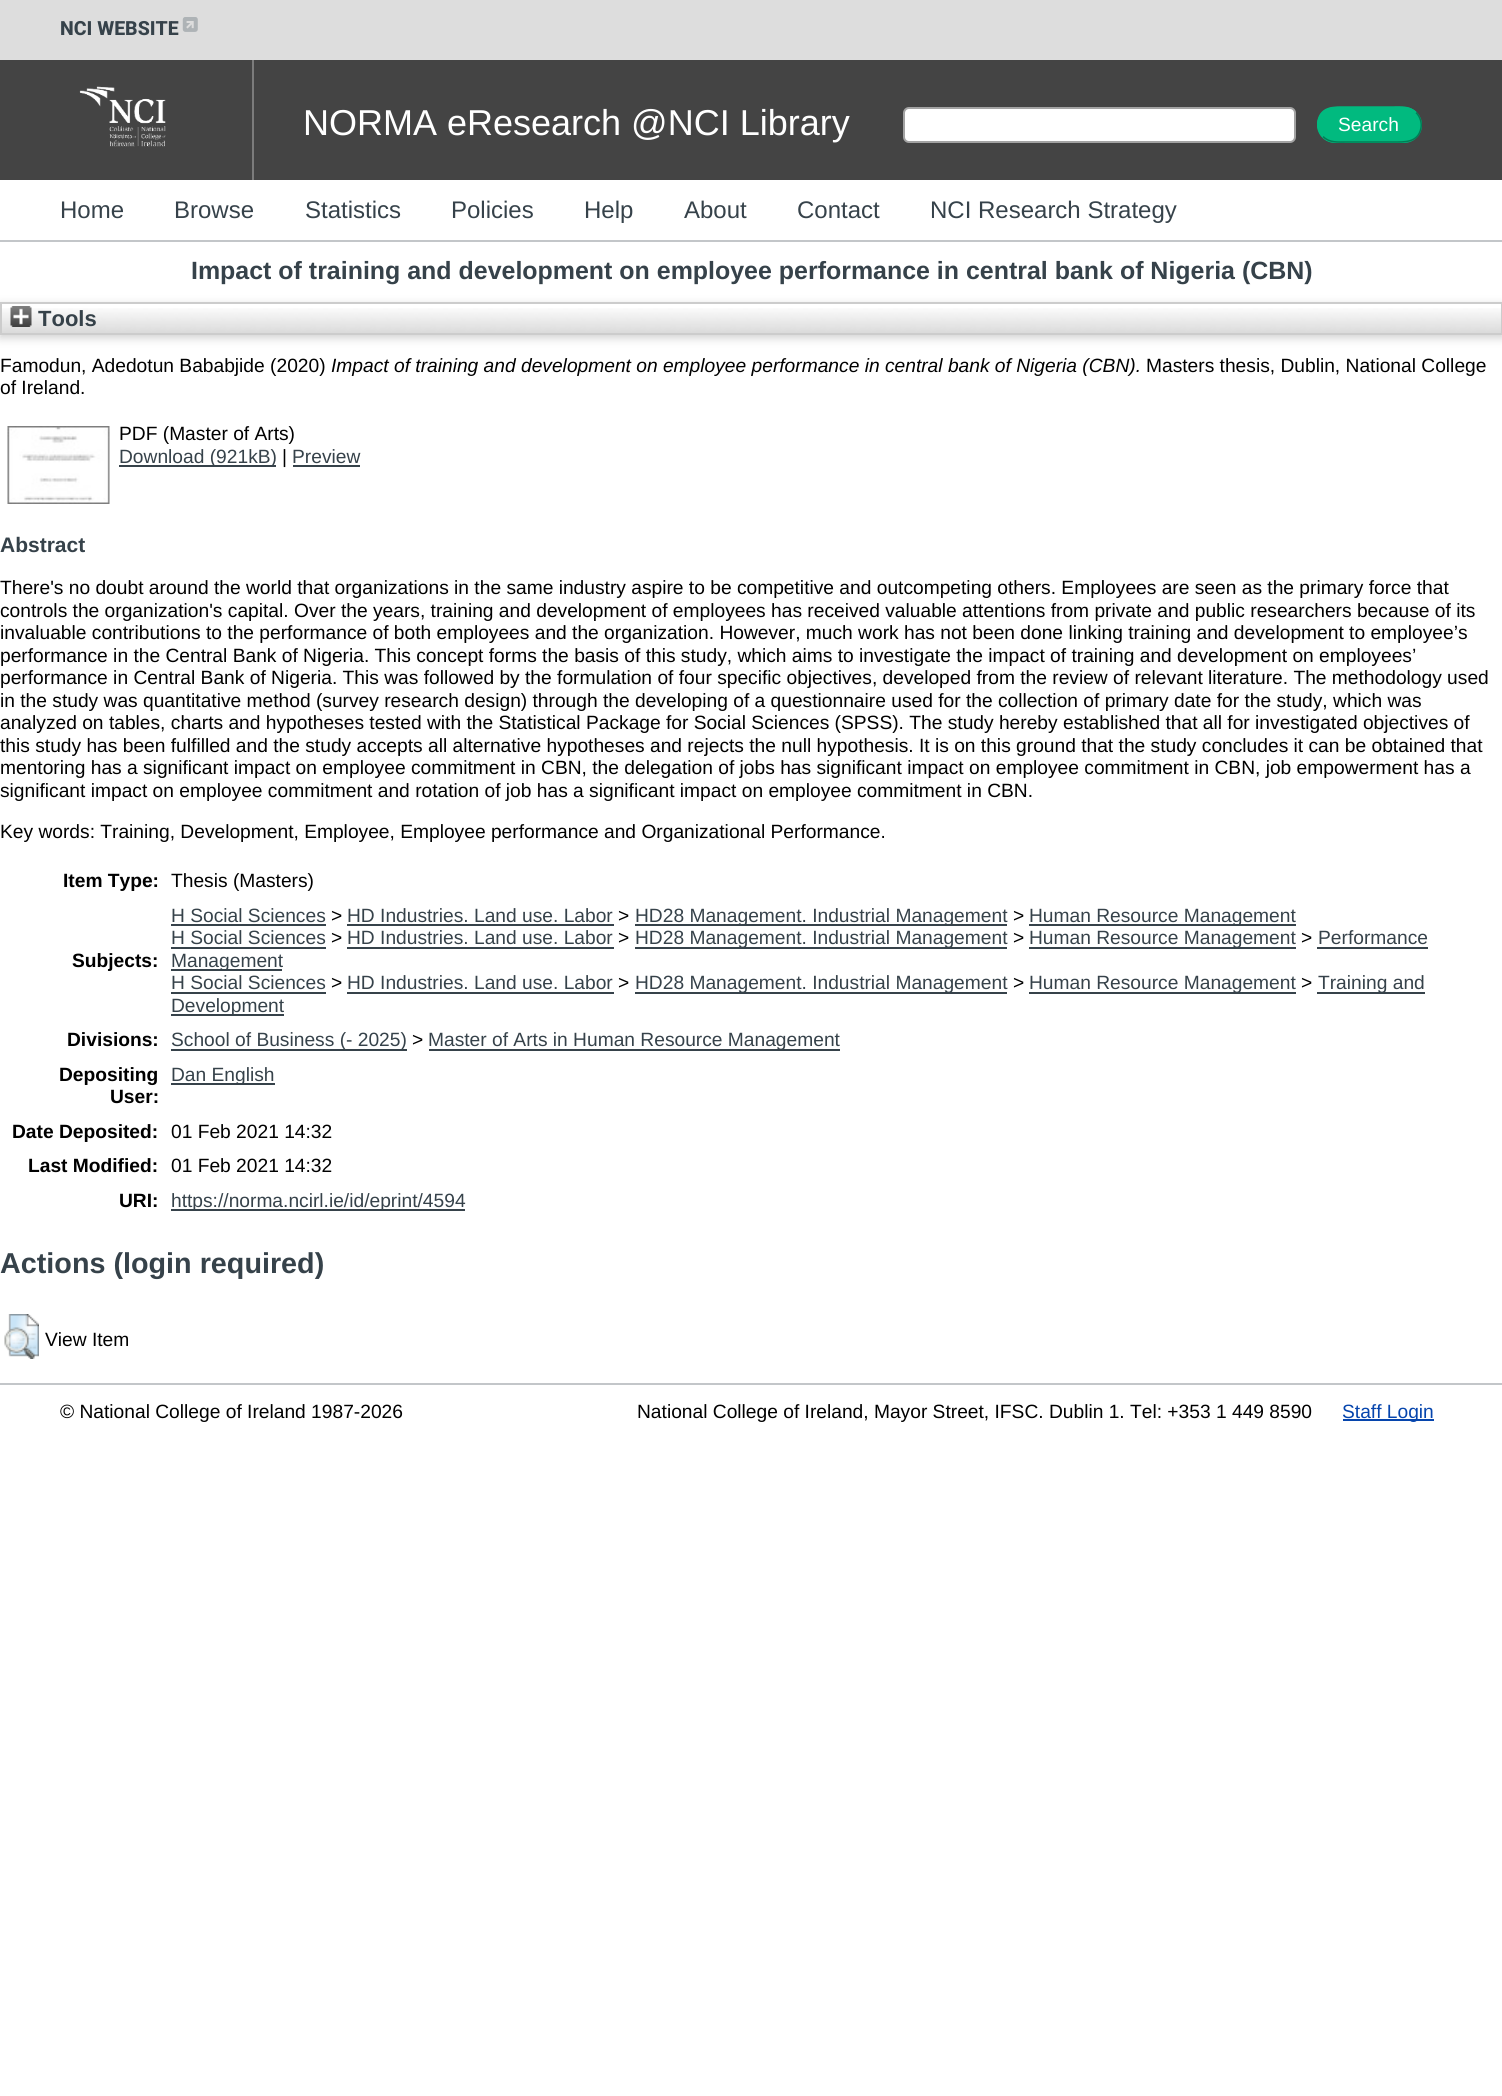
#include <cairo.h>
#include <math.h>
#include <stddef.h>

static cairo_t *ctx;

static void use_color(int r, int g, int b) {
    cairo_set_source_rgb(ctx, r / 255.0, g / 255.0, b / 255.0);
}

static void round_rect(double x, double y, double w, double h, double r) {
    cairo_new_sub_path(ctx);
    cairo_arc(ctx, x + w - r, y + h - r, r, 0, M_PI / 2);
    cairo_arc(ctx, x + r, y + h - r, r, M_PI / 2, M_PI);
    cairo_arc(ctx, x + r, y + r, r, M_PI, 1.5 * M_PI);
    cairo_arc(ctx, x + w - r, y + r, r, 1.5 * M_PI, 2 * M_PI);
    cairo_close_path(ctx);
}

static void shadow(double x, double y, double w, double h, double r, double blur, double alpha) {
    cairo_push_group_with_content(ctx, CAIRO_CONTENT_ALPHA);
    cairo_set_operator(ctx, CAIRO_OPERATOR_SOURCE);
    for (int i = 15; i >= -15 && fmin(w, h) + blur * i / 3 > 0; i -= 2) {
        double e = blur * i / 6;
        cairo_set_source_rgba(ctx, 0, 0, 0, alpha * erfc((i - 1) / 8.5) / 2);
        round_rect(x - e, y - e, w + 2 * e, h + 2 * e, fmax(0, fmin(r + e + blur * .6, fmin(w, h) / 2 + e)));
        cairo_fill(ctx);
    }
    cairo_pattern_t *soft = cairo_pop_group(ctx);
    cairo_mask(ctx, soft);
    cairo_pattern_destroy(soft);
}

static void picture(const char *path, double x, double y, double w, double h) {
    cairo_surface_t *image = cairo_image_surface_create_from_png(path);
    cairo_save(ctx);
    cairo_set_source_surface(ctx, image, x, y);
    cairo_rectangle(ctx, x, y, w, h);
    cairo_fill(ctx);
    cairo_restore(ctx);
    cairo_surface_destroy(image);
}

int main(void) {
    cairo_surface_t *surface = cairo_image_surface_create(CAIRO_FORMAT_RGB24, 1502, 2096);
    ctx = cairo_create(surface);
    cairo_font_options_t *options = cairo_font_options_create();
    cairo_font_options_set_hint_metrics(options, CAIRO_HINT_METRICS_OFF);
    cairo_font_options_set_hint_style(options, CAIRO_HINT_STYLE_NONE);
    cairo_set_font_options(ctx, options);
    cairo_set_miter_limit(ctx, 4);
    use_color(255, 255, 255);
    cairo_paint(ctx);
    use_color(221, 221, 221);
    cairo_rectangle(ctx, 0, 0, 1502, 60);
    cairo_fill(ctx);
    cairo_select_font_face(ctx, "Roboto ExtraBold", CAIRO_FONT_SLANT_NORMAL, CAIRO_FONT_WEIGHT_NORMAL);
    cairo_set_font_size(ctx, 19.5);
    use_color(54, 66, 74);
    cairo_move_to(ctx, 60, 35);
    cairo_show_text(ctx, "NCI WEBSITE");
    picture("img1.png", 182, 17, 16, 15);
    use_color(68, 68, 68);
    cairo_rectangle(ctx, 0, 60, 1502, 120);
    cairo_fill(ctx);
    picture("img2.png", 79, 86, 87, 61);
    use_color(124, 124, 124);
    cairo_rectangle(ctx, 252, 60, 2, 120);
    cairo_fill(ctx);
    cairo_select_font_face(ctx, "Liberation Sans", CAIRO_FONT_SLANT_NORMAL, CAIRO_FONT_WEIGHT_NORMAL);
    cairo_set_font_size(ctx, 36);
    use_color(255, 255, 255);
    cairo_move_to(ctx, 303, 135);
    cairo_show_text(ctx, "NORMA eResearch @NCI Library");
    round_rect(904, 108, 391, 34, 5);
    cairo_fill_preserve(ctx);
    use_color(163, 163, 163);
    cairo_stroke(ctx);
    use_color(1, 186, 127);
    round_rect(1317, 107, 105, 36, 18);
    cairo_fill(ctx);
    cairo_new_path(ctx);
    cairo_move_to(ctx, 1416, 112.5);
    cairo_curve_to(ctx, 1420, 116.5, 1422, 122.5, 1421, 128);
    cairo_curve_to(ctx, 1418, 143, 1404.5, 142, 1392.5, 142);
    cairo_line_to(ctx, 1346.5, 142);
    cairo_curve_to(ctx, 1338, 142, 1329.5, 143, 1323, 136.5);
    use_color(1, 124, 85);
    cairo_set_line_width(ctx, 1.5);
    cairo_stroke(ctx);
    cairo_new_path(ctx);
    cairo_move_to(ctx, 1323, 136.5);
    cairo_curve_to(ctx, 1319, 132.5, 1317, 126.5, 1318, 121);
    cairo_curve_to(ctx, 1321, 106, 1334.5, 107, 1346.5, 107);
    cairo_line_to(ctx, 1392.5, 107);
    cairo_curve_to(ctx, 1401, 107, 1409.5, 106, 1416, 112.5);
    use_color(1, 186, 127);
    cairo_stroke(ctx);
    cairo_set_font_size(ctx, 19.2);
    use_color(255, 255, 255);
    cairo_move_to(ctx, 1338, 131);
    cairo_show_text(ctx, "Search");
    use_color(195, 198, 201);
    cairo_rectangle(ctx, 0, 240, 1502, 2);
    cairo_fill(ctx);
    cairo_set_font_size(ctx, 24);
    use_color(54, 66, 74);
    cairo_move_to(ctx, 60, 218);
    cairo_show_text(ctx, "Home");
    cairo_move_to(ctx, 174, 218);
    cairo_show_text(ctx, "Browse");
    cairo_move_to(ctx, 305, 218);
    cairo_show_text(ctx, "Statistics");
    cairo_move_to(ctx, 451, 218);
    cairo_show_text(ctx, "Policies");
    cairo_move_to(ctx, 584, 218);
    cairo_show_text(ctx, "Help");
    cairo_move_to(ctx, 684, 218);
    cairo_show_text(ctx, "About");
    cairo_move_to(ctx, 797, 218);
    cairo_show_text(ctx, "Contact");
    cairo_move_to(ctx, 930, 218);
    cairo_show_text(ctx, "NCI Research Strategy");
    cairo_select_font_face(ctx, "Liberation Sans", CAIRO_FONT_SLANT_NORMAL, CAIRO_FONT_WEIGHT_BOLD);
    cairo_set_font_size(ctx, 24.95);
    cairo_move_to(ctx, 191, 279);
    cairo_show_text(ctx, "Impact of training and development on employee performance in central bank of Nigeria (CBN)");
    use_color(100, 100, 100);
    shadow(0, 305, 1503, 33, 0, 4.5, 0.3);
    use_color(255, 255, 255);
    cairo_rectangle(ctx, 2, 304, 1499, 4);
    cairo_fill(ctx);
    picture("img3.png", 2, 308, 1499, 25);
    cairo_rectangle(ctx, 1, 303, 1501, 31);
    use_color(204, 204, 204);
    cairo_set_line_width(ctx, 2);
    cairo_stroke(ctx);
    picture("img4.png", 10, 306, 22, 21);
    cairo_set_font_size(ctx, 22);
    use_color(54, 66, 74);
    cairo_move_to(ctx, 38, 326);
    cairo_show_text(ctx, "Tools");
    cairo_select_font_face(ctx, "Liberation Sans", CAIRO_FONT_SLANT_NORMAL, CAIRO_FONT_WEIGHT_NORMAL);
    cairo_set_font_size(ctx, 19.2);
    use_color(0, 0, 0);
    cairo_move_to(ctx, 0, 372);
    cairo_show_text(ctx, "Famodun, Adedotun Bababjide (2020)");
    cairo_select_font_face(ctx, "Liberation Sans", CAIRO_FONT_SLANT_ITALIC, CAIRO_FONT_WEIGHT_NORMAL);
    cairo_move_to(ctx, 331, 372);
    cairo_show_text(ctx, "Impact of training and development on employee performance in central bank of Nigeria (CBN).");
    cairo_select_font_face(ctx, "Liberation Sans", CAIRO_FONT_SLANT_NORMAL, CAIRO_FONT_WEIGHT_NORMAL);
    cairo_move_to(ctx, 1146, 372);
    cairo_show_text(ctx, "Masters thesis, Dublin, National College");
    cairo_move_to(ctx, 0, 394);
    cairo_show_text(ctx, "of Ireland.");
    picture("img5.png", 7, 426, 103, 78);
    cairo_move_to(ctx, 119, 440);
    cairo_show_text(ctx, "PDF (Master of Arts)");
    use_color(54, 66, 74);
    cairo_rectangle(ctx, 119, 465, 157, 2);
    cairo_fill(ctx);
    cairo_move_to(ctx, 119, 463);
    cairo_show_text(ctx, "Download (921kB)");
    use_color(0, 0, 0);
    cairo_move_to(ctx, 282, 463);
    cairo_show_text(ctx, "|");
    use_color(54, 66, 74);
    cairo_move_to(ctx, 292, 463);
    cairo_show_text(ctx, "Preview");
    cairo_rectangle(ctx, 293, 465, 67, 2);
    cairo_fill(ctx);
    cairo_select_font_face(ctx, "Liberation Sans", CAIRO_FONT_SLANT_NORMAL, CAIRO_FONT_WEIGHT_BOLD);
    cairo_set_font_size(ctx, 21);
    cairo_move_to(ctx, 0, 552);
    cairo_show_text(ctx, "Abstract");
    cairo_select_font_face(ctx, "Liberation Sans", CAIRO_FONT_SLANT_NORMAL, CAIRO_FONT_WEIGHT_NORMAL);
    cairo_set_font_size(ctx, 19.2);
    use_color(0, 0, 0);
    cairo_move_to(ctx, 0, 594);
    cairo_show_text(ctx, "There's no doubt around the world that organizations in the same industry aspire to be competitive and outcompeting others. Employees are seen as the primary force that");
    cairo_move_to(ctx, 0, 617);
    cairo_show_text(ctx, "controls the organization's capital. Over the years, training and development of employees has received valuable attentions from private and public researchers because of its");
    cairo_move_to(ctx, 0, 639);
    cairo_show_text(ctx, "invaluable contributions to the performance of both employees and the organization. However, much work has not been done linking training and development to employee’s");
    cairo_move_to(ctx, 0, 662);
    cairo_show_text(ctx, "performance in the Central Bank of Nigeria. This concept forms the basis of this study, which aims to investigate the impact of training and development on employees’");
    cairo_move_to(ctx, 0, 684);
    cairo_show_text(ctx, "performance in Central Bank of Nigeria. This was followed by the formulation of four specific objectives, developed from the review of relevant literature. The methodology used");
    cairo_move_to(ctx, 0, 707);
    cairo_show_text(ctx, "in the study was quantitative method (survey research design) through the developing of a questionnaire used for the collection of primary date for the study, which was");
    cairo_move_to(ctx, 0, 729);
    cairo_show_text(ctx, "analyzed on tables, charts and hypotheses tested with the Statistical Package for Social Sciences (SPSS). The study hereby established that all for investigated objectives of");
    cairo_move_to(ctx, 0, 752);
    cairo_show_text(ctx, "this study has been fulfilled and the study accepts all alternative hypotheses and rejects the null hypothesis. It is on this ground that the study concludes it can be obtained that");
    cairo_move_to(ctx, 0, 774);
    cairo_show_text(ctx, "mentoring has a significant impact on employee commitment in CBN, the delegation of jobs has significant impact on employee commitment in CBN, job empowerment has a");
    cairo_move_to(ctx, 0, 797);
    cairo_show_text(ctx, "significant impact on employee commitment and rotation of job has a significant impact on employee commitment in CBN.");
    cairo_move_to(ctx, 0, 838);
    cairo_show_text(ctx, "Key words: Training, Development, Employee, Employee performance and Organizational Performance.");
    cairo_select_font_face(ctx, "Liberation Sans", CAIRO_FONT_SLANT_NORMAL, CAIRO_FONT_WEIGHT_BOLD);
    cairo_move_to(ctx, 63, 887);
    cairo_show_text(ctx, "Item Type:");
    cairo_select_font_face(ctx, "Liberation Sans", CAIRO_FONT_SLANT_NORMAL, CAIRO_FONT_WEIGHT_NORMAL);
    cairo_move_to(ctx, 171, 887);
    cairo_show_text(ctx, "Thesis (Masters)");
    cairo_select_font_face(ctx, "Liberation Sans", CAIRO_FONT_SLANT_NORMAL, CAIRO_FONT_WEIGHT_BOLD);
    cairo_move_to(ctx, 72, 967);
    cairo_show_text(ctx, "Subjects:");
    cairo_select_font_face(ctx, "Liberation Sans", CAIRO_FONT_SLANT_NORMAL, CAIRO_FONT_WEIGHT_NORMAL);
    use_color(54, 66, 74);
    cairo_move_to(ctx, 171, 922);
    cairo_show_text(ctx, "H Social Sciences");
    cairo_rectangle(ctx, 171, 924, 155, 2);
    cairo_fill(ctx);
    use_color(0, 0, 0);
    cairo_move_to(ctx, 331, 922);
    cairo_show_text(ctx, ">");
    use_color(54, 66, 74);
    cairo_move_to(ctx, 347, 922);
    cairo_show_text(ctx, "HD Industries. Land use. Labor");
    cairo_rectangle(ctx, 347, 924, 267, 2);
    cairo_fill(ctx);
    use_color(0, 0, 0);
    cairo_move_to(ctx, 618, 922);
    cairo_show_text(ctx, ">");
    use_color(54, 66, 74);
    cairo_rectangle(ctx, 635, 924, 372, 2);
    cairo_fill(ctx);
    cairo_move_to(ctx, 635, 922);
    cairo_show_text(ctx, "HD28 Management. Industrial Management");
    use_color(0, 0, 0);
    cairo_move_to(ctx, 1013, 922);
    cairo_show_text(ctx, ">");
    use_color(54, 66, 74);
    cairo_rectangle(ctx, 1029, 924, 267, 2);
    cairo_fill(ctx);
    cairo_move_to(ctx, 1029, 922);
    cairo_show_text(ctx, "Human Resource Management");
    cairo_move_to(ctx, 171, 944);
    cairo_show_text(ctx, "H Social Sciences");
    cairo_rectangle(ctx, 171, 947, 155, 2);
    cairo_fill(ctx);
    use_color(0, 0, 0);
    cairo_move_to(ctx, 331, 944);
    cairo_show_text(ctx, ">");
    use_color(54, 66, 74);
    cairo_move_to(ctx, 347, 944);
    cairo_show_text(ctx, "HD Industries. Land use. Labor");
    cairo_rectangle(ctx, 347, 947, 267, 2);
    cairo_fill(ctx);
    use_color(0, 0, 0);
    cairo_move_to(ctx, 618, 944);
    cairo_show_text(ctx, ">");
    use_color(54, 66, 74);
    cairo_rectangle(ctx, 635, 947, 372, 2);
    cairo_fill(ctx);
    cairo_move_to(ctx, 635, 944);
    cairo_show_text(ctx, "HD28 Management. Industrial Management");
    use_color(0, 0, 0);
    cairo_move_to(ctx, 1013, 944);
    cairo_show_text(ctx, ">");
    use_color(54, 66, 74);
    cairo_rectangle(ctx, 1029, 947, 267, 2);
    cairo_fill(ctx);
    cairo_move_to(ctx, 1029, 944);
    cairo_show_text(ctx, "Human Resource Management");
    use_color(0, 0, 0);
    cairo_move_to(ctx, 1301, 944);
    cairo_show_text(ctx, ">");
    use_color(54, 66, 74);
    cairo_move_to(ctx, 1318, 944);
    cairo_show_text(ctx, "Performance");
    cairo_rectangle(ctx, 1317, 947, 111, 2);
    cairo_fill(ctx);
    cairo_rectangle(ctx, 171, 969, 111, 2);
    cairo_fill(ctx);
    cairo_move_to(ctx, 171, 967);
    cairo_show_text(ctx, "Management");
    cairo_move_to(ctx, 171, 989);
    cairo_show_text(ctx, "H Social Sciences");
    cairo_rectangle(ctx, 171, 992, 155, 2);
    cairo_fill(ctx);
    use_color(0, 0, 0);
    cairo_move_to(ctx, 331, 989);
    cairo_show_text(ctx, ">");
    use_color(54, 66, 74);
    cairo_move_to(ctx, 347, 989);
    cairo_show_text(ctx, "HD Industries. Land use. Labor");
    cairo_rectangle(ctx, 347, 992, 267, 2);
    cairo_fill(ctx);
    use_color(0, 0, 0);
    cairo_move_to(ctx, 618, 989);
    cairo_show_text(ctx, ">");
    use_color(54, 66, 74);
    cairo_rectangle(ctx, 635, 992, 372, 2);
    cairo_fill(ctx);
    cairo_move_to(ctx, 635, 989);
    cairo_show_text(ctx, "HD28 Management. Industrial Management");
    use_color(0, 0, 0);
    cairo_move_to(ctx, 1013, 989);
    cairo_show_text(ctx, ">");
    use_color(54, 66, 74);
    cairo_rectangle(ctx, 1029, 992, 267, 2);
    cairo_fill(ctx);
    cairo_move_to(ctx, 1029, 989);
    cairo_show_text(ctx, "Human Resource Management");
    use_color(0, 0, 0);
    cairo_move_to(ctx, 1301, 989);
    cairo_show_text(ctx, ">");
    use_color(54, 66, 74);
    cairo_rectangle(ctx, 1317, 992, 108, 2);
    cairo_fill(ctx);
    cairo_move_to(ctx, 1318, 989);
    cairo_show_text(ctx, "Training and");
    cairo_rectangle(ctx, 171, 1014, 113, 2);
    cairo_fill(ctx);
    cairo_move_to(ctx, 171, 1012);
    cairo_show_text(ctx, "Development");
    cairo_select_font_face(ctx, "Liberation Sans", CAIRO_FONT_SLANT_NORMAL, CAIRO_FONT_WEIGHT_BOLD);
    use_color(0, 0, 0);
    cairo_move_to(ctx, 67, 1046);
    cairo_show_text(ctx, "Divisions:");
    use_color(54, 66, 74);
    cairo_rectangle(ctx, 171, 1049, 236, 2);
    cairo_fill(ctx);
    cairo_select_font_face(ctx, "Liberation Sans", CAIRO_FONT_SLANT_NORMAL, CAIRO_FONT_WEIGHT_NORMAL);
    cairo_move_to(ctx, 171, 1046);
    cairo_show_text(ctx, "School of Business (- 2025)");
    use_color(0, 0, 0);
    cairo_move_to(ctx, 412, 1046);
    cairo_show_text(ctx, ">");
    use_color(54, 66, 74);
    cairo_rectangle(ctx, 429, 1049, 411, 2);
    cairo_fill(ctx);
    cairo_move_to(ctx, 428, 1046);
    cairo_show_text(ctx, "Master of Arts in Human Resource Management");
    cairo_select_font_face(ctx, "Liberation Sans", CAIRO_FONT_SLANT_NORMAL, CAIRO_FONT_WEIGHT_BOLD);
    use_color(0, 0, 0);
    cairo_move_to(ctx, 59, 1081);
    cairo_show_text(ctx, "Depositing");
    cairo_move_to(ctx, 110, 1103);
    cairo_show_text(ctx, "User:");
    use_color(54, 66, 74);
    cairo_rectangle(ctx, 171, 1083, 104, 2);
    cairo_fill(ctx);
    cairo_select_font_face(ctx, "Liberation Sans", CAIRO_FONT_SLANT_NORMAL, CAIRO_FONT_WEIGHT_NORMAL);
    cairo_move_to(ctx, 171, 1081);
    cairo_show_text(ctx, "Dan English");
    cairo_select_font_face(ctx, "Liberation Sans", CAIRO_FONT_SLANT_NORMAL, CAIRO_FONT_WEIGHT_BOLD);
    use_color(0, 0, 0);
    cairo_move_to(ctx, 12, 1138);
    cairo_show_text(ctx, "Date Deposited:");
    cairo_select_font_face(ctx, "Liberation Sans", CAIRO_FONT_SLANT_NORMAL, CAIRO_FONT_WEIGHT_NORMAL);
    cairo_move_to(ctx, 171, 1138);
    cairo_show_text(ctx, "01 Feb 2021 14:32");
    cairo_select_font_face(ctx, "Liberation Sans", CAIRO_FONT_SLANT_NORMAL, CAIRO_FONT_WEIGHT_BOLD);
    cairo_move_to(ctx, 28, 1172);
    cairo_show_text(ctx, "Last Modified:");
    cairo_select_font_face(ctx, "Liberation Sans", CAIRO_FONT_SLANT_NORMAL, CAIRO_FONT_WEIGHT_NORMAL);
    cairo_move_to(ctx, 171, 1172);
    cairo_show_text(ctx, "01 Feb 2021 14:32");
    cairo_select_font_face(ctx, "Liberation Sans", CAIRO_FONT_SLANT_NORMAL, CAIRO_FONT_WEIGHT_BOLD);
    cairo_move_to(ctx, 119, 1207);
    cairo_show_text(ctx, "URI:");
    use_color(54, 66, 74);
    cairo_rectangle(ctx, 171, 1209, 294, 2);
    cairo_fill(ctx);
    cairo_select_font_face(ctx, "Liberation Sans", CAIRO_FONT_SLANT_NORMAL, CAIRO_FONT_WEIGHT_NORMAL);
    cairo_move_to(ctx, 171, 1207);
    cairo_show_text(ctx, "https://norma.ncirl.ie/id/eprint/4594");
    cairo_select_font_face(ctx, "Liberation Sans", CAIRO_FONT_SLANT_NORMAL, CAIRO_FONT_WEIGHT_BOLD);
    cairo_set_font_size(ctx, 28.75);
    cairo_move_to(ctx, 0, 1273);
    cairo_show_text(ctx, "Actions (login required)");
    picture("img6.png", 4, 1314, 35, 45);
    cairo_select_font_face(ctx, "Liberation Sans", CAIRO_FONT_SLANT_NORMAL, CAIRO_FONT_WEIGHT_NORMAL);
    cairo_set_font_size(ctx, 19.2);
    use_color(0, 0, 0);
    cairo_move_to(ctx, 45, 1346);
    cairo_show_text(ctx, "View Item");
    use_color(195, 198, 201);
    cairo_rectangle(ctx, 0, 1383, 1502, 2);
    cairo_fill(ctx);
    use_color(0, 0, 0);
    cairo_move_to(ctx, 60, 1418);
    cairo_show_text(ctx, "© National College of Ireland 1987-2026");
    cairo_move_to(ctx, 637, 1418);
    cairo_show_text(ctx, "National College of Ireland, Mayor Street, IFSC. Dublin 1. Tel: +353 1 449 8590");
    use_color(6, 69, 173);
    cairo_rectangle(ctx, 1343, 1419, 91, 2);
    cairo_fill(ctx);
    cairo_move_to(ctx, 1342, 1418);
    cairo_show_text(ctx, "Staff Login");
    cairo_surface_write_to_png(surface, "result.png");
    cairo_font_options_destroy(options);
    cairo_destroy(ctx);
    cairo_surface_destroy(surface);
    return 0;
}
